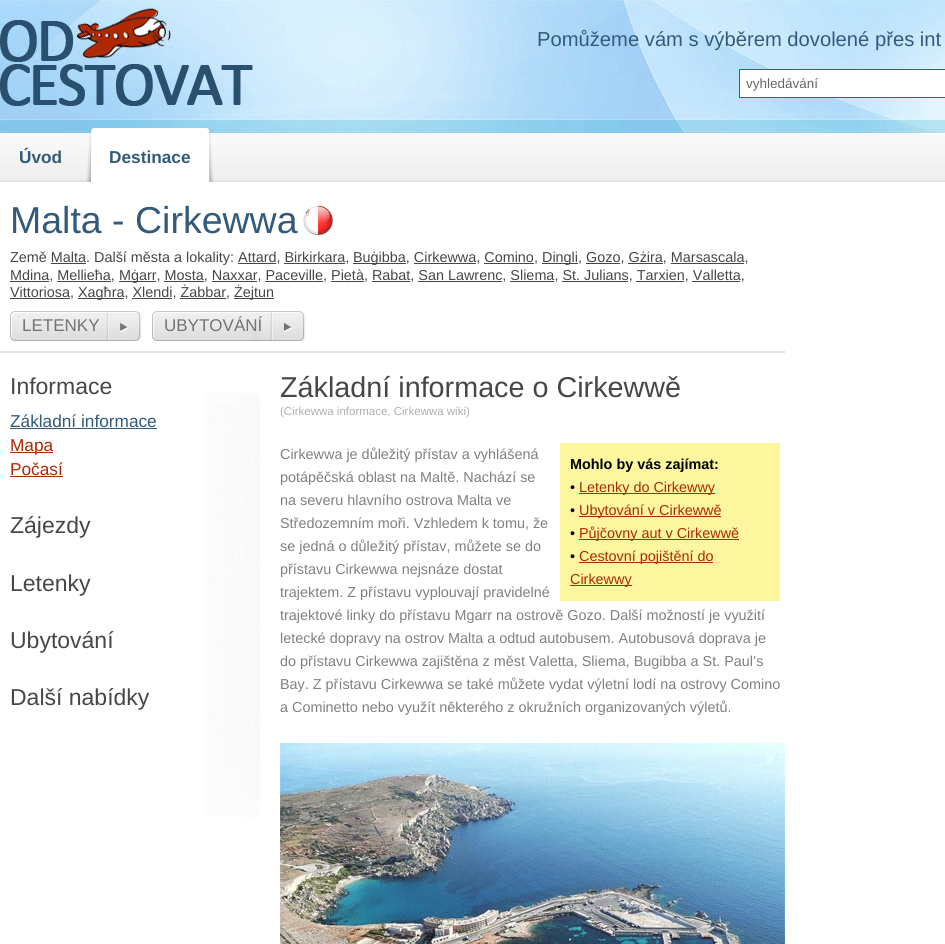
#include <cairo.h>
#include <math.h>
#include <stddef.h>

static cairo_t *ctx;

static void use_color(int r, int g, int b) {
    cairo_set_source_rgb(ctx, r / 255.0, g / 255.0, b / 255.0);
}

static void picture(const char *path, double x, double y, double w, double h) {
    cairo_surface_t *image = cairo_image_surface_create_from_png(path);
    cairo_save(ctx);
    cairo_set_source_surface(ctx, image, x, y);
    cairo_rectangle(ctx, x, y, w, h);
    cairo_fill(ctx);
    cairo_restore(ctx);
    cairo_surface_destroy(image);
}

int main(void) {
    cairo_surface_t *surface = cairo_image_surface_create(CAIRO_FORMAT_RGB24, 945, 944);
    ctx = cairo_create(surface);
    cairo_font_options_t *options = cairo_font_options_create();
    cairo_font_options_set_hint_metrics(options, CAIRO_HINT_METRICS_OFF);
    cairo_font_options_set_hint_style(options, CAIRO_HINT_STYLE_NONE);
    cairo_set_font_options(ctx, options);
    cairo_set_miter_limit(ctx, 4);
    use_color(255, 255, 255);
    cairo_paint(ctx);
    picture("img1.png", 0, 0, 945, 133);
    picture("img2.png", 0, 8, 253, 98);
    cairo_select_font_face(ctx, "Liberation Sans", CAIRO_FONT_SLANT_NORMAL, CAIRO_FONT_WEIGHT_NORMAL);
    cairo_set_font_size(ctx, 20.2);
    use_color(50, 91, 123);
    cairo_move_to(ctx, 537, 46);
    cairo_show_text(ctx, "Pomůžeme vám s výběrem dovolené přes int");
    use_color(255, 255, 255);
    cairo_rectangle(ctx, 739.5, 69.5, 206, 28);
    cairo_fill_preserve(ctx);
    use_color(147, 57, 90);
    cairo_set_line_width(ctx, 1);
    cairo_stroke(ctx);
    cairo_set_font_size(ctx, 13.5);
    use_color(102, 102, 102);
    cairo_move_to(ctx, 746, 88);
    cairo_show_text(ctx, "vyhledávání");
    picture("img3.png", 0, 119, 945, 63);
    cairo_select_font_face(ctx, "Liberation Sans", CAIRO_FONT_SLANT_NORMAL, CAIRO_FONT_WEIGHT_BOLD);
    cairo_set_font_size(ctx, 17.25);
    use_color(50, 91, 123);
    cairo_move_to(ctx, 19, 163);
    cairo_show_text(ctx, "Úvod");
    picture("img4.png", 201, 128, 13, 54);
    picture("img5.png", 86, 128, 115, 54);
    cairo_move_to(ctx, 109, 163);
    cairo_show_text(ctx, "Destinace");
    use_color(224, 224, 224);
    cairo_rectangle(ctx, 0, 351, 785, 2);
    cairo_fill(ctx);
    cairo_select_font_face(ctx, "Liberation Sans", CAIRO_FONT_SLANT_NORMAL, CAIRO_FONT_WEIGHT_NORMAL);
    cairo_set_font_size(ctx, 37.5);
    use_color(50, 91, 123);
    cairo_move_to(ctx, 10, 233);
    cairo_show_text(ctx, "Malta - Cirkewwa");
    picture("img6.png", 303, 205, 30, 31);
    cairo_set_font_size(ctx, 14.4);
    use_color(71, 71, 71);
    cairo_move_to(ctx, 10, 262);
    cairo_show_text(ctx, "Země Malta. Další města a lokality: Attard, Birkirkara,");
    cairo_rectangle(ctx, 353, 263, 53, 1);
    cairo_fill(ctx);
    cairo_move_to(ctx, 353, 262);
    cairo_show_text(ctx, "Buġibba, Cirkewwa, Comino,");
    cairo_rectangle(ctx, 542, 263, 36, 1);
    cairo_fill(ctx);
    cairo_move_to(ctx, 542, 262);
    cairo_show_text(ctx, "Dingli, Gozo, Gżira, Marsascala,");
    cairo_rectangle(ctx, 51, 263, 35, 1);
    cairo_fill(ctx);
    cairo_rectangle(ctx, 238, 263, 38, 1);
    cairo_fill(ctx);
    cairo_rectangle(ctx, 284, 263, 61, 1);
    cairo_fill(ctx);
    cairo_rectangle(ctx, 414, 263, 62, 1);
    cairo_fill(ctx);
    cairo_rectangle(ctx, 484, 263, 50, 1);
    cairo_fill(ctx);
    cairo_rectangle(ctx, 586, 263, 34, 1);
    cairo_fill(ctx);
    cairo_rectangle(ctx, 628, 263, 35, 1);
    cairo_fill(ctx);
    cairo_rectangle(ctx, 671, 263, 73, 1);
    cairo_fill(ctx);
    cairo_rectangle(ctx, 10, 281, 39, 1);
    cairo_fill(ctx);
    cairo_move_to(ctx, 10, 280);
    cairo_show_text(ctx, "Mdina, Mellieħa,");
    cairo_rectangle(ctx, 119, 281, 37, 1);
    cairo_fill(ctx);
    cairo_move_to(ctx, 119, 280);
    cairo_show_text(ctx, "Mġarr, Mosta, Naxxar, Paceville, Pietà, Rabat, San Lawrenc, Sliema, St. Julians, Tarxien, Valletta,");
    cairo_rectangle(ctx, 57, 281, 54, 1);
    cairo_fill(ctx);
    cairo_rectangle(ctx, 164, 281, 40, 1);
    cairo_fill(ctx);
    cairo_rectangle(ctx, 212, 281, 45, 1);
    cairo_fill(ctx);
    cairo_rectangle(ctx, 265, 281, 58, 1);
    cairo_fill(ctx);
    cairo_rectangle(ctx, 331, 281, 33, 1);
    cairo_fill(ctx);
    cairo_rectangle(ctx, 372, 281, 38, 1);
    cairo_fill(ctx);
    cairo_rectangle(ctx, 418, 281, 84, 1);
    cairo_fill(ctx);
    cairo_rectangle(ctx, 510, 281, 44, 1);
    cairo_fill(ctx);
    cairo_rectangle(ctx, 562, 281, 66, 1);
    cairo_fill(ctx);
    cairo_rectangle(ctx, 636, 281, 48, 1);
    cairo_fill(ctx);
    cairo_rectangle(ctx, 692, 281, 48, 1);
    cairo_fill(ctx);
    cairo_rectangle(ctx, 10, 298, 60, 1);
    cairo_fill(ctx);
    cairo_move_to(ctx, 10, 297);
    cairo_show_text(ctx, "Vittoriosa,");
    cairo_rectangle(ctx, 78, 298, 46, 1);
    cairo_fill(ctx);
    cairo_move_to(ctx, 78, 297);
    cairo_show_text(ctx, "Xagħra, Xlendi, Żabbar,");
    cairo_rectangle(ctx, 234, 298, 40, 1);
    cairo_fill(ctx);
    cairo_move_to(ctx, 234, 297);
    cairo_show_text(ctx, "Żejtun");
    cairo_rectangle(ctx, 132, 298, 40, 1);
    cairo_fill(ctx);
    cairo_rectangle(ctx, 180, 298, 46, 1);
    cairo_fill(ctx);
    picture("img7.png", 106, 311, 36, 30);
    picture("img8.png", 10, 311, 97, 30);
    cairo_set_font_size(ctx, 17);
    use_color(115, 115, 115);
    cairo_move_to(ctx, 22, 331);
    cairo_show_text(ctx, "LETENKY");
    picture("img9.png", 269, 311, 37, 30);
    picture("img10.png", 152, 311, 119, 30);
    cairo_move_to(ctx, 164, 331);
    cairo_show_text(ctx, "UBYTOVÁNÍ");
    picture("img11.png", 204, 393, 56, 424);
    cairo_set_font_size(ctx, 23);
    use_color(71, 71, 71);
    cairo_move_to(ctx, 10, 394);
    cairo_show_text(ctx, "Informace");
    cairo_set_font_size(ctx, 17.25);
    use_color(50, 91, 123);
    cairo_move_to(ctx, 10, 427);
    cairo_show_text(ctx, "Základní informace");
    cairo_rectangle(ctx, 10, 428, 147, 1);
    cairo_fill(ctx);
    use_color(174, 41, 1);
    cairo_rectangle(ctx, 10, 452, 43, 1);
    cairo_fill(ctx);
    cairo_move_to(ctx, 10, 451);
    cairo_show_text(ctx, "Mapa");
    cairo_move_to(ctx, 10, 475);
    cairo_show_text(ctx, "Počasí");
    cairo_rectangle(ctx, 10, 476, 53, 1);
    cairo_fill(ctx);
    cairo_set_font_size(ctx, 23);
    use_color(71, 71, 71);
    cairo_move_to(ctx, 10, 533);
    cairo_show_text(ctx, "Zájezdy");
    cairo_move_to(ctx, 10, 591);
    cairo_show_text(ctx, "Letenky");
    cairo_move_to(ctx, 10, 648);
    cairo_show_text(ctx, "Ubytování");
    cairo_move_to(ctx, 10, 705);
    cairo_show_text(ctx, "Další nabídky");
    cairo_set_font_size(ctx, 28.75);
    cairo_move_to(ctx, 280, 397);
    cairo_show_text(ctx, "Základní informace o Cirkewwě");
    cairo_set_font_size(ctx, 11.5);
    use_color(174, 174, 174);
    cairo_move_to(ctx, 280, 415);
    cairo_show_text(ctx, "(Cirkewwa informace, Cirkewwa wiki)");
    cairo_set_font_size(ctx, 14.4);
    use_color(128, 128, 128);
    cairo_move_to(ctx, 280, 459);
    cairo_show_text(ctx, "Cirkewwa je důležitý přístav a vyhlášená");
    cairo_move_to(ctx, 280, 482);
    cairo_show_text(ctx, "potápěčská oblast na Maltě. Nachází se");
    use_color(252, 247, 159);
    cairo_rectangle(ctx, 560, 443, 220, 158);
    cairo_fill(ctx);
    cairo_select_font_face(ctx, "Liberation Sans", CAIRO_FONT_SLANT_NORMAL, CAIRO_FONT_WEIGHT_BOLD);
    use_color(0, 0, 0);
    cairo_move_to(ctx, 570, 469);
    cairo_show_text(ctx, "Mohlo by vás zajímat:");
    cairo_select_font_face(ctx, "Liberation Sans", CAIRO_FONT_SLANT_NORMAL, CAIRO_FONT_WEIGHT_NORMAL);
    cairo_move_to(ctx, 570, 492);
    cairo_show_text(ctx, "•");
    use_color(174, 41, 1);
    cairo_rectangle(ctx, 579, 493, 136, 1);
    cairo_fill(ctx);
    cairo_move_to(ctx, 579, 492);
    cairo_show_text(ctx, "Letenky do Cirkewwy");
    use_color(0, 0, 0);
    cairo_move_to(ctx, 570, 515);
    cairo_show_text(ctx, "•");
    use_color(174, 41, 1);
    cairo_rectangle(ctx, 579, 516, 142, 1);
    cairo_fill(ctx);
    cairo_move_to(ctx, 579, 515);
    cairo_show_text(ctx, "Ubytování v Cirkewwě");
    use_color(0, 0, 0);
    cairo_move_to(ctx, 570, 538);
    cairo_show_text(ctx, "•");
    use_color(174, 41, 1);
    cairo_rectangle(ctx, 579, 539, 160, 1);
    cairo_fill(ctx);
    cairo_move_to(ctx, 579, 538);
    cairo_show_text(ctx, "Půjčovny aut v Cirkewwě");
    use_color(0, 0, 0);
    cairo_move_to(ctx, 570, 561);
    cairo_show_text(ctx, "•");
    use_color(174, 41, 1);
    cairo_rectangle(ctx, 579, 562, 134, 1);
    cairo_fill(ctx);
    cairo_move_to(ctx, 579, 561);
    cairo_show_text(ctx, "Cestovní pojištění do");
    cairo_rectangle(ctx, 570, 585, 62, 1);
    cairo_fill(ctx);
    cairo_move_to(ctx, 570, 584);
    cairo_show_text(ctx, "Cirkewwy");
    use_color(128, 128, 128);
    cairo_move_to(ctx, 280, 505);
    cairo_show_text(ctx, "na severu hlavního ostrova Malta ve");
    cairo_move_to(ctx, 280, 528);
    cairo_show_text(ctx, "Středozemním moři. Vzhledem k tomu, že");
    cairo_move_to(ctx, 280, 551);
    cairo_show_text(ctx, "se jedná o důležitý přístav, můžete se do");
    cairo_move_to(ctx, 280, 574);
    cairo_show_text(ctx, "přístavu Cirkewwa nejsnáze dostat");
    cairo_move_to(ctx, 280, 597);
    cairo_show_text(ctx, "trajektem. Z přístavu vyplouvají pravidelné");
    cairo_move_to(ctx, 280, 620);
    cairo_show_text(ctx, "trajektové linky do přístavu Mgarr na ostrově Gozo. Další možností je využití");
    cairo_move_to(ctx, 280, 643);
    cairo_show_text(ctx, "letecké dopravy na ostrov Malta a odtud autobusem. Autobusová doprava je");
    cairo_move_to(ctx, 280, 666);
    cairo_show_text(ctx, "do přístavu Cirkewwa zajištěna z měst Valetta, Sliema, Bugibba a St. Paul’s");
    cairo_move_to(ctx, 280, 689);
    cairo_show_text(ctx, "Bay. Z přístavu Cirkewwa se také můžete vydat výletní lodí na ostrovy Comino");
    cairo_move_to(ctx, 280, 712);
    cairo_show_text(ctx, "a Cominetto nebo využít některého z okružních organizovaných výletů.");
    picture("img12.png", 280, 743, 505, 201);
    cairo_surface_write_to_png(surface, "result.png");
    cairo_font_options_destroy(options);
    cairo_destroy(ctx);
    cairo_surface_destroy(surface);
    return 0;
}
